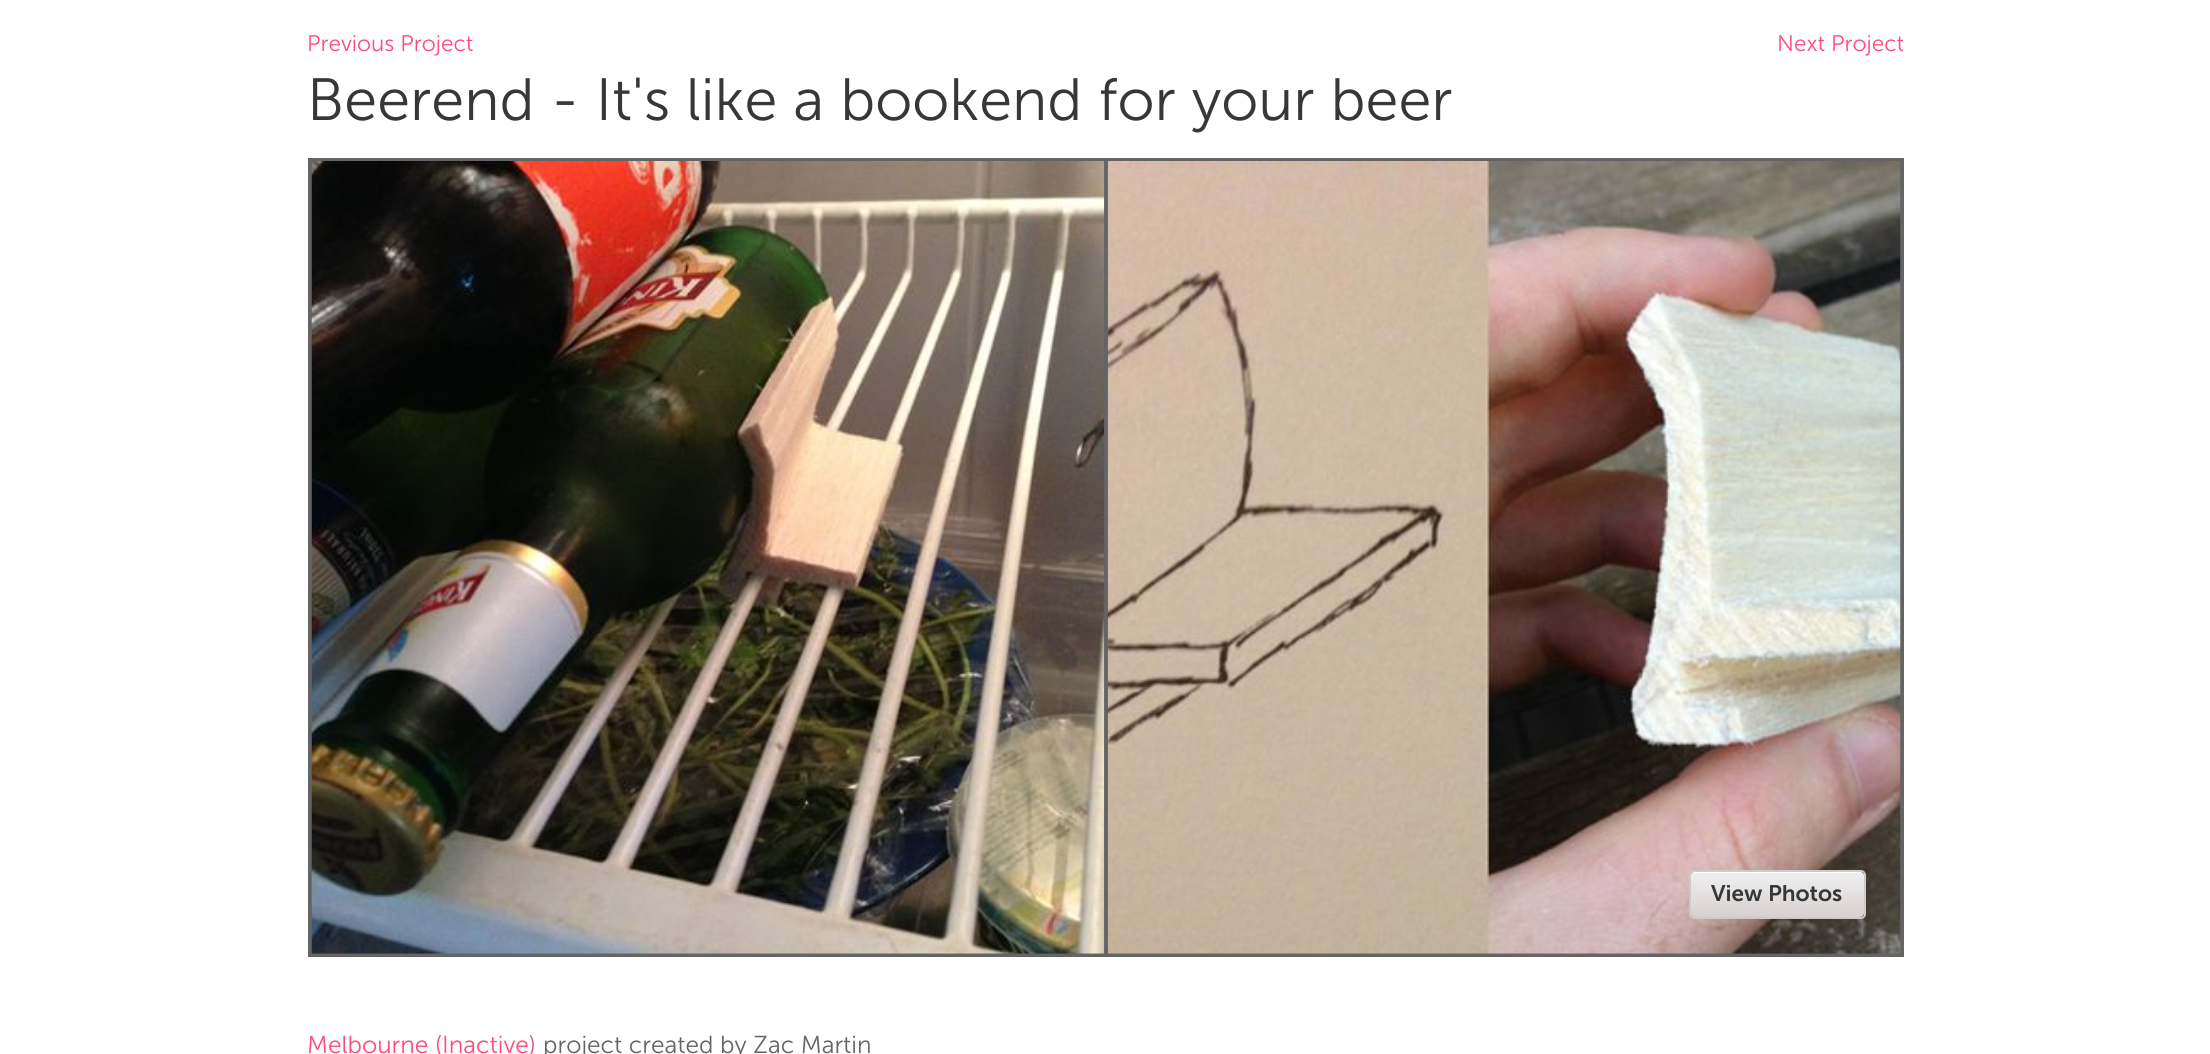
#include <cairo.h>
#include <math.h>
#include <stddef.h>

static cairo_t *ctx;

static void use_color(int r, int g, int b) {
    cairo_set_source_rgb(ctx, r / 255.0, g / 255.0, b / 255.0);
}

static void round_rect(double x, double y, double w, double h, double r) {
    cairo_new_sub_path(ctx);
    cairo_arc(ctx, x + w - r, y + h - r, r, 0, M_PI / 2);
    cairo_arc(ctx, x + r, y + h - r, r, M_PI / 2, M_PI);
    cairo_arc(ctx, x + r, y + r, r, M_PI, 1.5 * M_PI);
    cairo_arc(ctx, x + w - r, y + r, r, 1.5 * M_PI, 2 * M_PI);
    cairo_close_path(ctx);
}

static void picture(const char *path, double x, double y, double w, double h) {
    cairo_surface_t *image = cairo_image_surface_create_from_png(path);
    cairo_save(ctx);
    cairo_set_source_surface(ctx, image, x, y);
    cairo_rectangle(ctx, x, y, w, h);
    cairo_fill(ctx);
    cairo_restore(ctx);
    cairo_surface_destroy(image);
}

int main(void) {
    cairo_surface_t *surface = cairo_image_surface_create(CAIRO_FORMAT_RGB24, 2210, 1054);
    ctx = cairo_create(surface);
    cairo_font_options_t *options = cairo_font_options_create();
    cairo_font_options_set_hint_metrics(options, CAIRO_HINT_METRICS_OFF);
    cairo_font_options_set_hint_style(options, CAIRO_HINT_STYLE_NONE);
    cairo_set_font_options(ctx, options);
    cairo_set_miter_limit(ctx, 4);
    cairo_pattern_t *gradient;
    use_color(255, 255, 255);
    cairo_paint(ctx);
    cairo_select_font_face(ctx, "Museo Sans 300 Light", CAIRO_FONT_SLANT_NORMAL, CAIRO_FONT_WEIGHT_NORMAL);
    cairo_set_font_size(ctx, 22.5);
    use_color(255, 75, 126);
    cairo_move_to(ctx, 307, 51);
    cairo_show_text(ctx, "Previous Project");
    cairo_move_to(ctx, 1777, 51);
    cairo_show_text(ctx, "Next Project");
    cairo_set_font_size(ctx, 59.5);
    use_color(55, 55, 55);
    cairo_move_to(ctx, 307, 120);
    cairo_show_text(ctx, "Beerend - It's like a bookend for your beer");
    use_color(100, 100, 100);
    cairo_rectangle(ctx, 308, 158, 1596, 799);
    cairo_fill(ctx);
    picture("img1.png", 311, 161, 794, 793);
    picture("img2.png", 1107, 161, 794, 793);
    gradient = cairo_pattern_create_linear(1777, 872, 1777, 917);
    cairo_pattern_add_color_stop_rgba(gradient, 0, 0.941, 0.941, 0.941, 1);
    cairo_pattern_add_color_stop_rgba(gradient, 1, 0.847, 0.816, 0.816, 1);
    cairo_set_source(ctx, gradient);
    cairo_pattern_destroy(gradient);
    round_rect(1691, 872, 173, 45, 4);
    cairo_fill(ctx);
    use_color(255, 255, 255);
    cairo_new_path(ctx);
    cairo_move_to(ctx, 1694, 873);
    cairo_line_to(ctx, 1860, 873);
    cairo_curve_to(ctx, 1862, 873, 1864, 875, 1864, 877);
    cairo_line_to(ctx, 1864, 876);
    cairo_curve_to(ctx, 1864, 874, 1862, 872, 1860, 872);
    cairo_line_to(ctx, 1695, 872);
    cairo_curve_to(ctx, 1694, 872, 1692, 873, 1692, 874);
    cairo_close_path(ctx);
    cairo_fill(ctx);
    round_rect(1690, 871, 175, 47, 4);
    use_color(209, 200, 200);
    cairo_stroke(ctx);
    cairo_select_font_face(ctx, "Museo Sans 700 SemiBold", CAIRO_FONT_SLANT_NORMAL, CAIRO_FONT_WEIGHT_NORMAL);
    cairo_set_font_size(ctx, 22.5);
    use_color(55, 55, 55);
    cairo_move_to(ctx, 1711, 901);
    cairo_show_text(ctx, "View Photos");
    cairo_select_font_face(ctx, "Museo Sans 300 Light", CAIRO_FONT_SLANT_NORMAL, CAIRO_FONT_WEIGHT_NORMAL);
    cairo_set_font_size(ctx, 24.5);
    use_color(255, 75, 126);
    cairo_move_to(ctx, 307, 1053);
    cairo_show_text(ctx, "Melbourne (Inactive)");
    use_color(100, 100, 100);
    cairo_move_to(ctx, 543, 1053);
    cairo_show_text(ctx, "project created by Zac Martin");
    cairo_surface_write_to_png(surface, "result.png");
    cairo_font_options_destroy(options);
    cairo_destroy(ctx);
    cairo_surface_destroy(surface);
    return 0;
}
